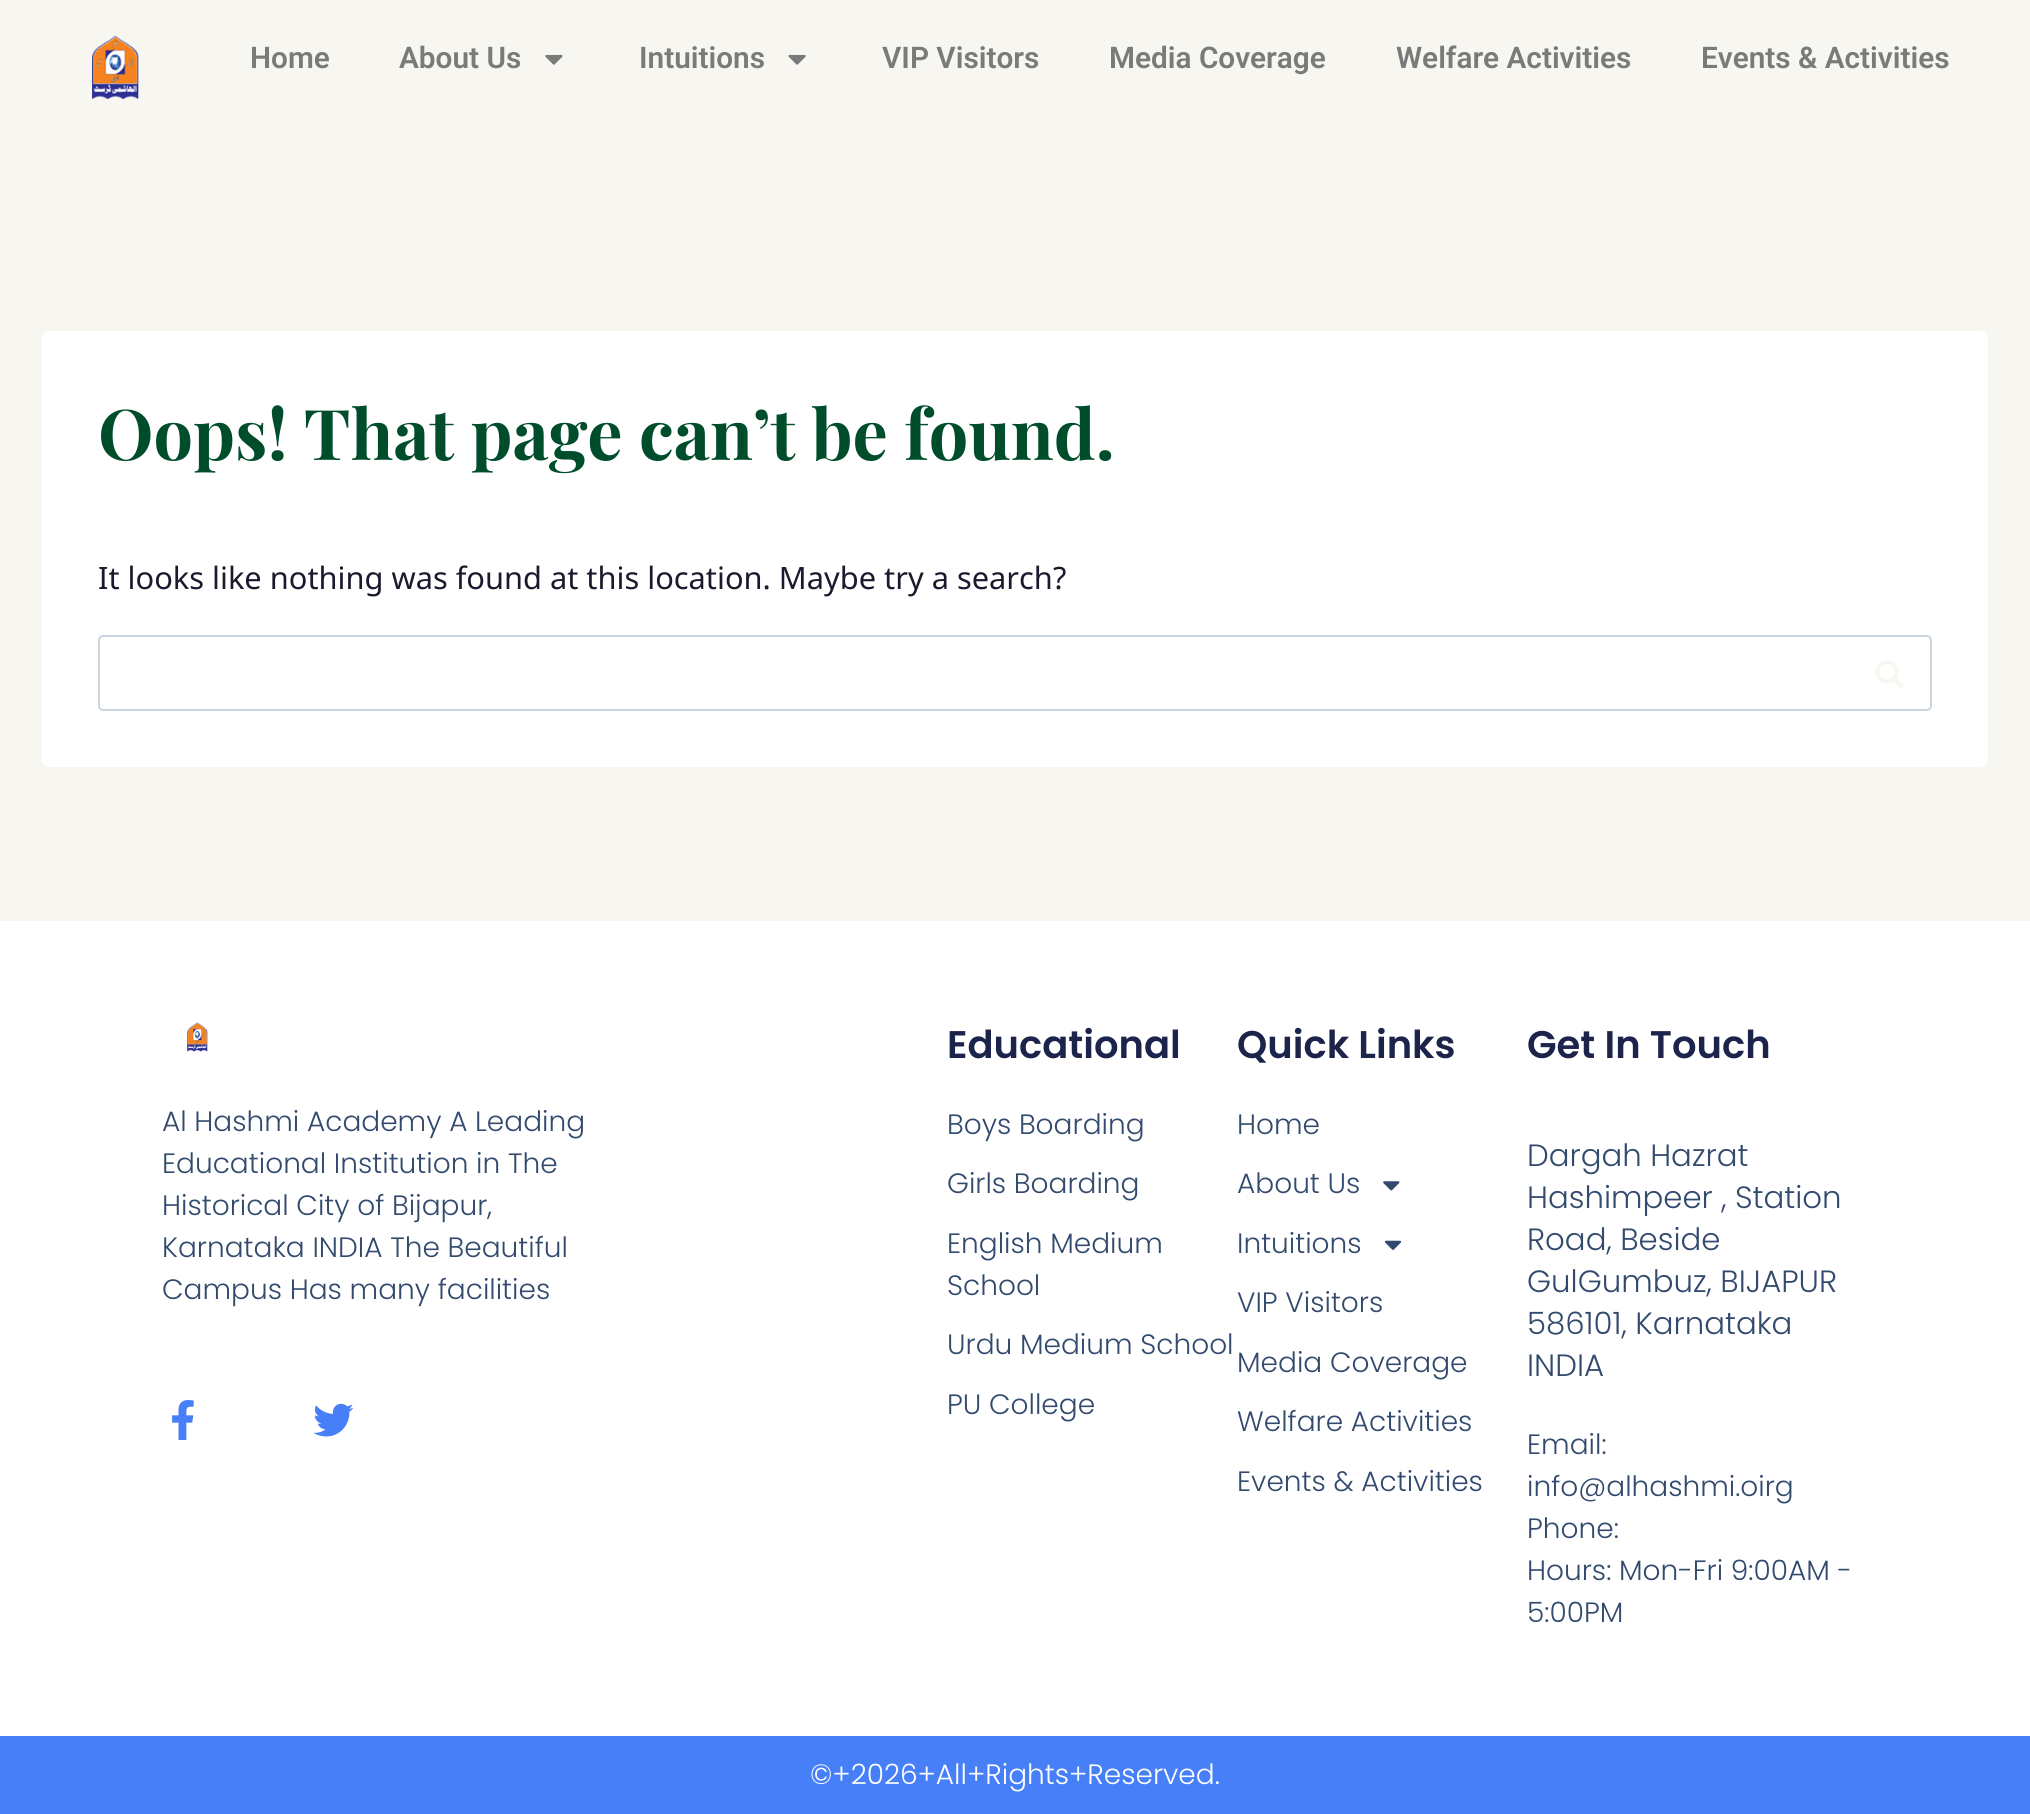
#include <cairo.h>
#include <math.h>
#include <stddef.h>

static cairo_t *ctx;

static void use_color(int r, int g, int b) {
    cairo_set_source_rgb(ctx, r / 255.0, g / 255.0, b / 255.0);
}

static void round_rect(double x, double y, double w, double h, double r) {
    cairo_new_sub_path(ctx);
    cairo_arc(ctx, x + w - r, y + h - r, r, 0, M_PI / 2);
    cairo_arc(ctx, x + r, y + h - r, r, M_PI / 2, M_PI);
    cairo_arc(ctx, x + r, y + r, r, M_PI, 1.5 * M_PI);
    cairo_arc(ctx, x + w - r, y + r, r, 1.5 * M_PI, 2 * M_PI);
    cairo_close_path(ctx);
}

static void picture(const char *path, double x, double y, double w, double h) {
    cairo_surface_t *image = cairo_image_surface_create_from_png(path);
    cairo_save(ctx);
    cairo_set_source_surface(ctx, image, x, y);
    cairo_rectangle(ctx, x, y, w, h);
    cairo_fill(ctx);
    cairo_restore(ctx);
    cairo_surface_destroy(image);
}

int main(void) {
    cairo_surface_t *surface = cairo_image_surface_create(CAIRO_FORMAT_RGB24, 2030, 1814);
    ctx = cairo_create(surface);
    cairo_font_options_t *options = cairo_font_options_create();
    cairo_font_options_set_hint_metrics(options, CAIRO_HINT_METRICS_OFF);
    cairo_font_options_set_hint_style(options, CAIRO_HINT_STYLE_NONE);
    cairo_set_font_options(ctx, options);
    cairo_set_miter_limit(ctx, 4);
    use_color(248, 246, 240);
    cairo_paint(ctx);
    picture("img1.png", 92, 35, 47, 64);
    cairo_select_font_face(ctx, "Roboto SemiBold", CAIRO_FONT_SLANT_NORMAL, CAIRO_FONT_WEIGHT_NORMAL);
    cairo_set_font_size(ctx, 29.75);
    use_color(122, 122, 122);
    cairo_move_to(ctx, 250, 68);
    cairo_show_text(ctx, "Home");
    cairo_move_to(ctx, 399, 68);
    cairo_show_text(ctx, "About Us");
    picture("img2.png", 545, 54, 18, 11);
    cairo_move_to(ctx, 639, 68);
    cairo_show_text(ctx, "Intuitions");
    picture("img3.png", 788, 54, 18, 11);
    cairo_move_to(ctx, 882, 68);
    cairo_show_text(ctx, "VIP Visitors");
    cairo_move_to(ctx, 1109, 68);
    cairo_show_text(ctx, "Media Coverage");
    cairo_move_to(ctx, 1396, 68);
    cairo_show_text(ctx, "Welfare Activities");
    cairo_move_to(ctx, 1701, 68);
    cairo_show_text(ctx, "Events & Activities");
    use_color(255, 255, 255);
    round_rect(42, 331, 1946, 436, 7);
    cairo_fill(ctx);
    cairo_select_font_face(ctx, "Playfair Display", CAIRO_FONT_SLANT_NORMAL, CAIRO_FONT_WEIGHT_BOLD);
    cairo_set_font_size(ctx, 70);
    use_color(0, 77, 44);
    cairo_move_to(ctx, 98, 460);
    cairo_show_text(ctx, "Oops! That page can’t be found.");
    cairo_select_font_face(ctx, "Noto Sans", CAIRO_FONT_SLANT_NORMAL, CAIRO_FONT_WEIGHT_NORMAL);
    cairo_set_font_size(ctx, 30.8);
    use_color(26, 26, 46);
    cairo_move_to(ctx, 98, 589);
    cairo_show_text(ctx, "It looks like nothing was found at this location. Maybe try a search?");
    round_rect(99, 636, 1832, 74, 4);
    use_color(203, 213, 224);
    cairo_stroke(ctx);
    picture("img4.png", 1875, 660, 28, 28);
    use_color(255, 255, 255);
    cairo_rectangle(ctx, 0, 921, 2030, 815);
    cairo_fill(ctx);
    picture("img5.png", 187, 1022, 21, 30);
    cairo_select_font_face(ctx, "Poppins Light", CAIRO_FONT_SLANT_NORMAL, CAIRO_FONT_WEIGHT_NORMAL);
    cairo_set_font_size(ctx, 28);
    use_color(50, 74, 109);
    cairo_move_to(ctx, 162, 1131);
    cairo_show_text(ctx, "Al Hashmi Academy A Leading");
    cairo_move_to(ctx, 162, 1173);
    cairo_show_text(ctx, "Educational Institution in The");
    cairo_move_to(ctx, 162, 1215);
    cairo_show_text(ctx, "Historical City of Bijapur,");
    cairo_move_to(ctx, 162, 1257);
    cairo_show_text(ctx, "Karnataka INDIA The Beautiful");
    cairo_move_to(ctx, 162, 1299);
    cairo_show_text(ctx, "Campus Has many facilities");
    picture("img6.png", 172, 1400, 22, 40);
    picture("img7.png", 313, 1403, 41, 34);
    cairo_select_font_face(ctx, "Poppins SemiBold", CAIRO_FONT_SLANT_NORMAL, CAIRO_FONT_WEIGHT_NORMAL);
    cairo_set_font_size(ctx, 38.5);
    use_color(28, 36, 75);
    cairo_move_to(ctx, 947, 1058);
    cairo_show_text(ctx, "Educational");
    cairo_select_font_face(ctx, "Poppins Light", CAIRO_FONT_SLANT_NORMAL, CAIRO_FONT_WEIGHT_NORMAL);
    cairo_set_font_size(ctx, 28);
    use_color(50, 74, 109);
    cairo_move_to(ctx, 947, 1134);
    cairo_show_text(ctx, "Boys Boarding");
    cairo_move_to(ctx, 947, 1193);
    cairo_show_text(ctx, "Girls Boarding");
    cairo_move_to(ctx, 947, 1253);
    cairo_show_text(ctx, "English Medium");
    cairo_move_to(ctx, 947, 1295);
    cairo_show_text(ctx, "School");
    cairo_move_to(ctx, 947, 1354);
    cairo_show_text(ctx, "Urdu Medium School");
    cairo_move_to(ctx, 947, 1414);
    cairo_show_text(ctx, "PU College");
    cairo_select_font_face(ctx, "Poppins SemiBold", CAIRO_FONT_SLANT_NORMAL, CAIRO_FONT_WEIGHT_NORMAL);
    cairo_set_font_size(ctx, 38.5);
    use_color(28, 36, 75);
    cairo_move_to(ctx, 1237, 1058);
    cairo_show_text(ctx, "Quick Links");
    cairo_select_font_face(ctx, "Poppins Light", CAIRO_FONT_SLANT_NORMAL, CAIRO_FONT_WEIGHT_NORMAL);
    cairo_set_font_size(ctx, 28);
    use_color(50, 74, 109);
    cairo_move_to(ctx, 1237, 1134);
    cairo_show_text(ctx, "Home");
    cairo_move_to(ctx, 1237, 1193);
    cairo_show_text(ctx, "About Us");
    picture("img8.png", 1383, 1181, 17, 10);
    cairo_move_to(ctx, 1237, 1253);
    cairo_show_text(ctx, "Intuitions");
    picture("img9.png", 1384, 1240, 18, 10);
    cairo_move_to(ctx, 1237, 1312);
    cairo_show_text(ctx, "VIP Visitors");
    cairo_move_to(ctx, 1237, 1372);
    cairo_show_text(ctx, "Media Coverage");
    cairo_move_to(ctx, 1237, 1431);
    cairo_show_text(ctx, "Welfare Activities");
    cairo_move_to(ctx, 1237, 1491);
    cairo_show_text(ctx, "Events & Activities");
    cairo_select_font_face(ctx, "Poppins SemiBold", CAIRO_FONT_SLANT_NORMAL, CAIRO_FONT_WEIGHT_NORMAL);
    cairo_set_font_size(ctx, 38.5);
    use_color(28, 36, 75);
    cairo_move_to(ctx, 1527, 1058);
    cairo_show_text(ctx, "Get In Touch");
    cairo_select_font_face(ctx, "Poppins Light", CAIRO_FONT_SLANT_NORMAL, CAIRO_FONT_WEIGHT_NORMAL);
    cairo_set_font_size(ctx, 30.8);
    use_color(50, 74, 109);
    cairo_move_to(ctx, 1527, 1166);
    cairo_show_text(ctx, "Dargah Hazrat");
    cairo_move_to(ctx, 1527, 1208);
    cairo_show_text(ctx, "Hashimpeer , Station");
    cairo_move_to(ctx, 1527, 1250);
    cairo_show_text(ctx, "Road, Beside");
    cairo_move_to(ctx, 1527, 1292);
    cairo_show_text(ctx, "GulGumbuz, BIJAPUR");
    cairo_move_to(ctx, 1527, 1334);
    cairo_show_text(ctx, "586101, Karnataka");
    cairo_move_to(ctx, 1527, 1376);
    cairo_show_text(ctx, "INDIA");
    cairo_set_font_size(ctx, 28);
    cairo_move_to(ctx, 1527, 1454);
    cairo_show_text(ctx, "Email:");
    cairo_move_to(ctx, 1527, 1496);
    cairo_show_text(ctx, "info@alhashmi.oirg");
    cairo_move_to(ctx, 1527, 1538);
    cairo_show_text(ctx, "Phone:");
    cairo_move_to(ctx, 1527, 1580);
    cairo_show_text(ctx, "Hours: Mon-Fri 9:00AM -");
    cairo_move_to(ctx, 1527, 1622);
    cairo_show_text(ctx, "5:00PM");
    use_color(70, 127, 247);
    cairo_rectangle(ctx, 0, 1736, 2030, 78);
    cairo_fill(ctx);
    use_color(255, 255, 255);
    cairo_move_to(ctx, 810, 1784);
    cairo_show_text(ctx, "©+2026+All+Rights+Reserved.");
    cairo_surface_write_to_png(surface, "result.png");
    cairo_font_options_destroy(options);
    cairo_destroy(ctx);
    cairo_surface_destroy(surface);
    return 0;
}
